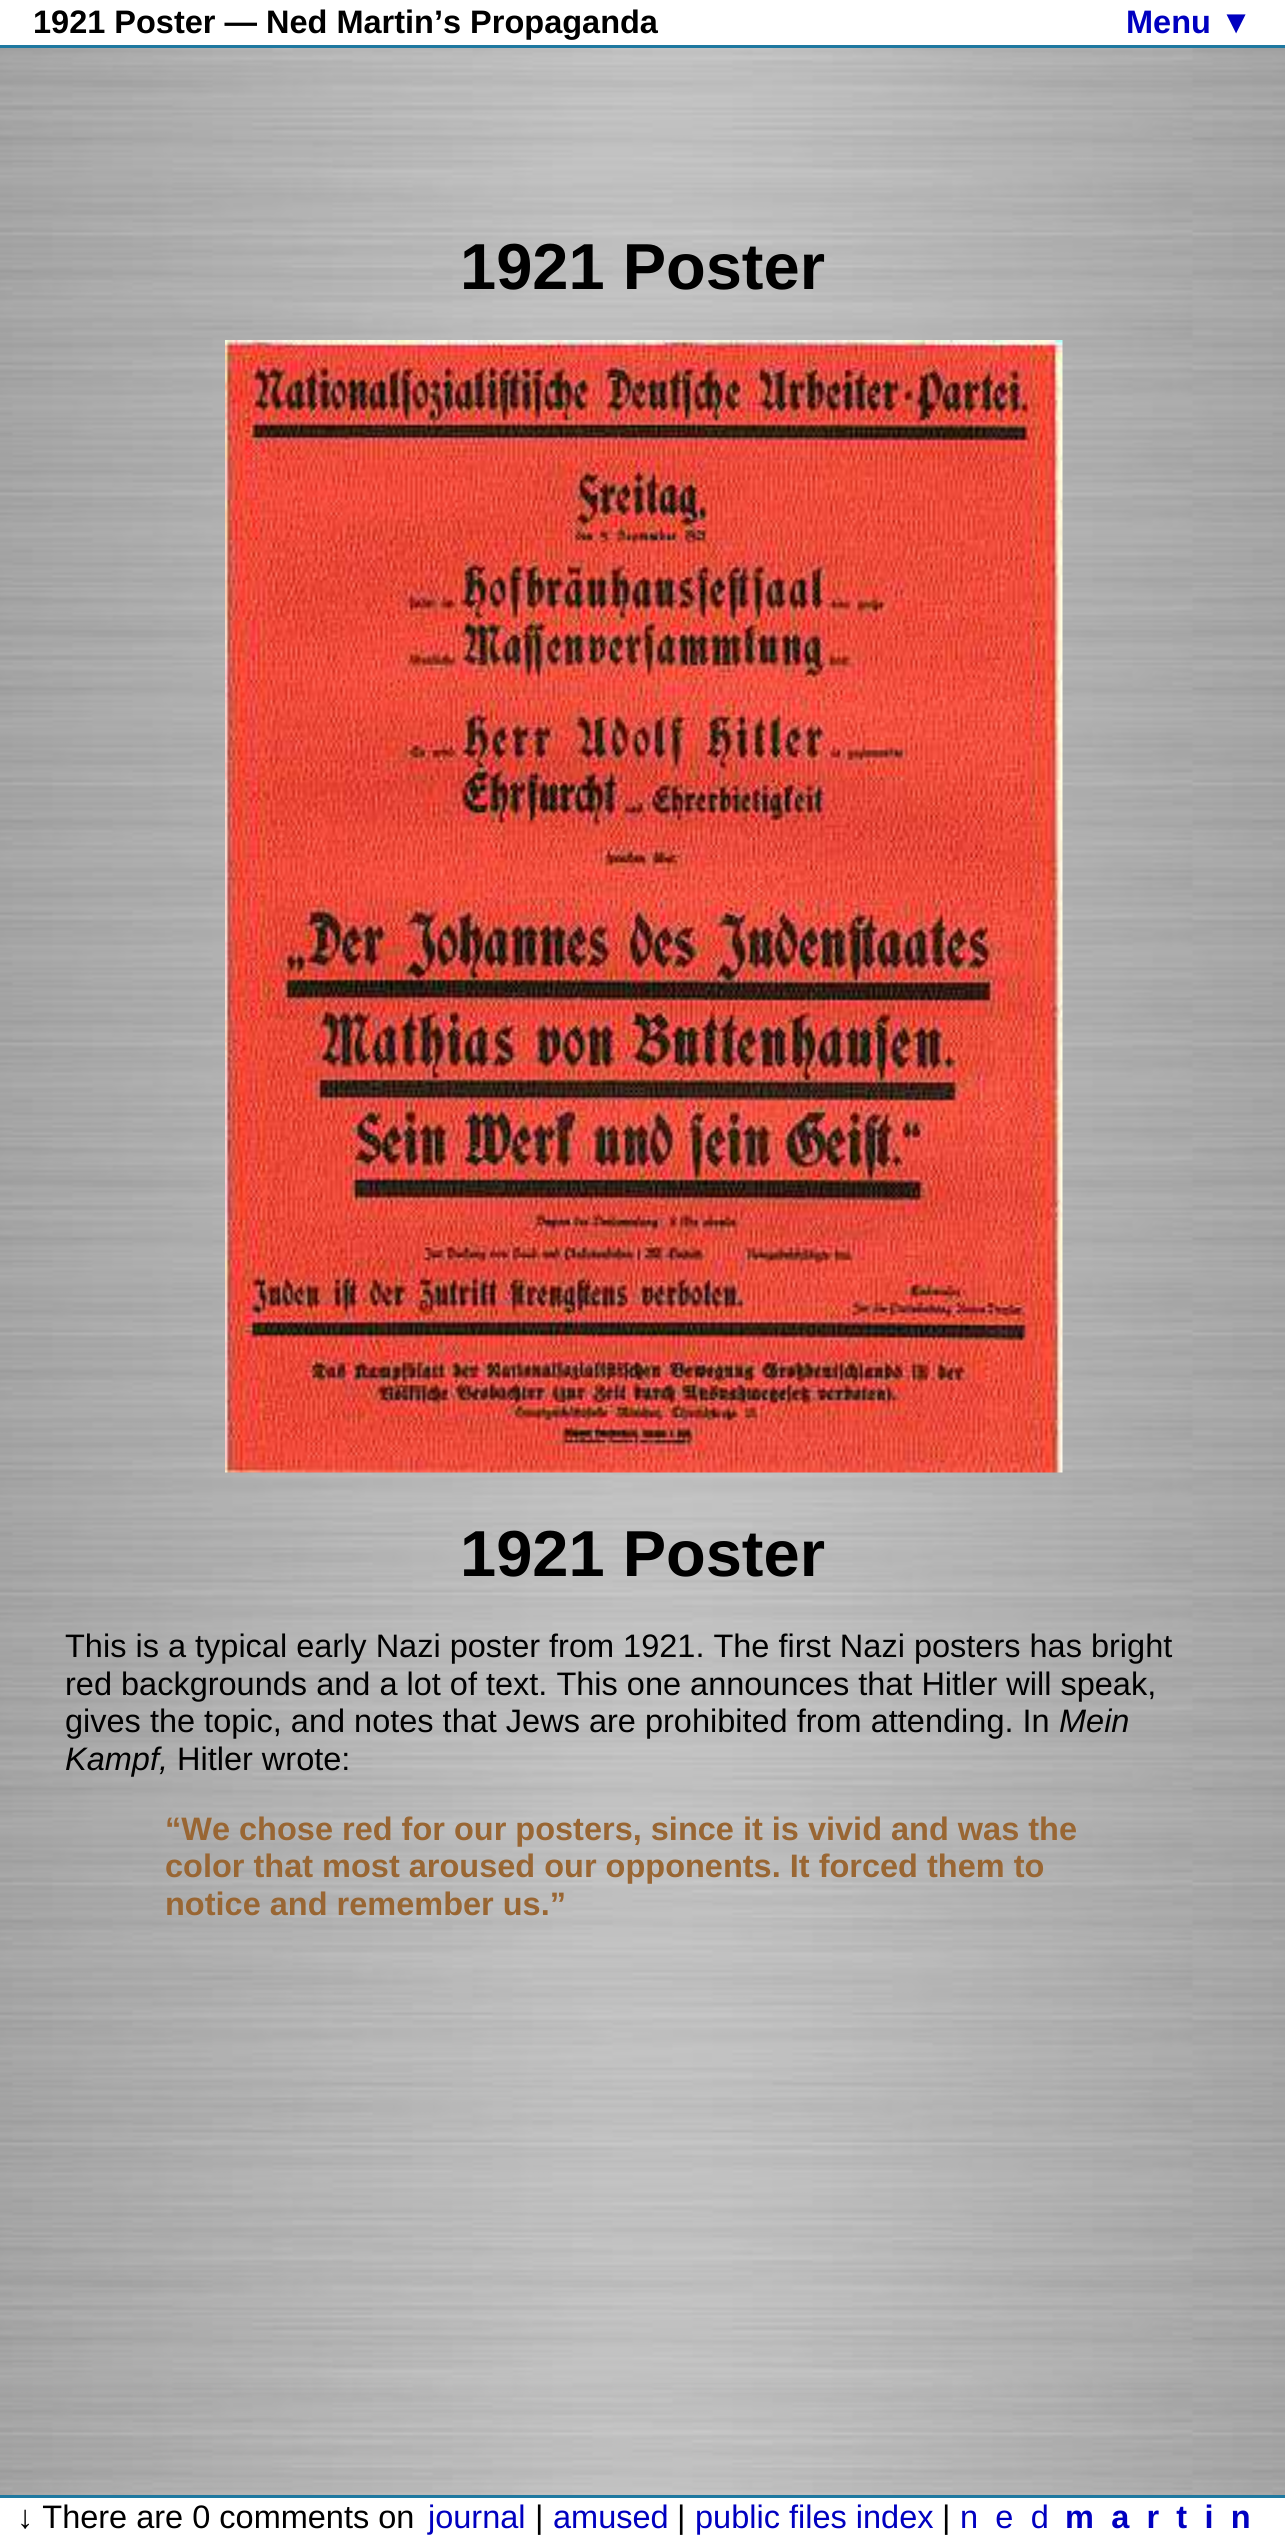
#include <cairo.h>
#include <math.h>
#include <stddef.h>

static cairo_t *ctx;

static void use_color(int r, int g, int b) {
    cairo_set_source_rgb(ctx, r / 255.0, g / 255.0, b / 255.0);
}

static void spaced_text(double x, double y, const char *s, double letter, double word) {
    cairo_move_to(ctx, x, y);
    while (*s) {
        char ch[5] = {0};
        int n = 0;
        do ch[n++] = *s++; while ((*s & 0xC0) == 0x80);
        cairo_show_text(ctx, ch);
        cairo_rel_move_to(ctx, letter + word * (*ch == ' '), 0);
    }
}

static void picture(const char *path, double x, double y, double w, double h) {
    cairo_surface_t *image = cairo_image_surface_create_from_png(path);
    cairo_save(ctx);
    cairo_set_source_surface(ctx, image, x, y);
    cairo_rectangle(ctx, x, y, w, h);
    cairo_fill(ctx);
    cairo_restore(ctx);
    cairo_surface_destroy(image);
}

int main(void) {
    cairo_surface_t *surface = cairo_image_surface_create(CAIRO_FORMAT_RGB24, 1285, 2545);
    ctx = cairo_create(surface);
    cairo_font_options_t *options = cairo_font_options_create();
    cairo_font_options_set_hint_metrics(options, CAIRO_HINT_METRICS_OFF);
    cairo_font_options_set_hint_style(options, CAIRO_HINT_STYLE_NONE);
    cairo_set_font_options(ctx, options);
    cairo_set_miter_limit(ctx, 4);
    use_color(255, 255, 255);
    cairo_paint(ctx);
    picture("img1.png", 0, 48, 1285, 2447);
    use_color(30, 120, 160);
    cairo_rectangle(ctx, 0, 45, 1285, 3);
    cairo_fill(ctx);
    cairo_select_font_face(ctx, "Liberation Sans", CAIRO_FONT_SLANT_NORMAL, CAIRO_FONT_WEIGHT_BOLD);
    cairo_set_font_size(ctx, 32.5);
    use_color(0, 0, 0);
    cairo_move_to(ctx, 33, 33);
    cairo_show_text(ctx, "1921 Poster — Ned Martin’s Propaganda");
    use_color(0, 0, 192);
    cairo_move_to(ctx, 1126, 33);
    cairo_show_text(ctx, "Menu ▼");
    cairo_set_font_size(ctx, 65);
    use_color(0, 0, 0);
    cairo_move_to(ctx, 460, 289);
    cairo_show_text(ctx, "1921 Poster");
    picture("img2.png", 225, 340, 838, 1133);
    cairo_move_to(ctx, 460, 1576);
    cairo_show_text(ctx, "1921 Poster");
    cairo_select_font_face(ctx, "Liberation Sans", CAIRO_FONT_SLANT_NORMAL, CAIRO_FONT_WEIGHT_NORMAL);
    cairo_set_font_size(ctx, 32.5);
    cairo_move_to(ctx, 65, 1657);
    cairo_show_text(ctx, "This is a typical early Nazi poster from 1921. The first Nazi posters has bright");
    cairo_move_to(ctx, 65, 1695);
    cairo_show_text(ctx, "red backgrounds and a lot of text. This one announces that Hitler will speak,");
    cairo_move_to(ctx, 65, 1732);
    cairo_show_text(ctx, "gives the topic, and notes that Jews are prohibited from attending. In");
    cairo_select_font_face(ctx, "Liberation Sans", CAIRO_FONT_SLANT_ITALIC, CAIRO_FONT_WEIGHT_NORMAL);
    cairo_move_to(ctx, 1059, 1732);
    cairo_show_text(ctx, "Mein");
    cairo_move_to(ctx, 65, 1770);
    cairo_show_text(ctx, "Kampf,");
    cairo_select_font_face(ctx, "Liberation Sans", CAIRO_FONT_SLANT_NORMAL, CAIRO_FONT_WEIGHT_NORMAL);
    cairo_move_to(ctx, 177, 1770);
    cairo_show_text(ctx, "Hitler wrote:");
    cairo_select_font_face(ctx, "Liberation Sans", CAIRO_FONT_SLANT_NORMAL, CAIRO_FONT_WEIGHT_BOLD);
    use_color(153, 102, 51);
    cairo_move_to(ctx, 165, 1840);
    cairo_show_text(ctx, "“We chose red for our posters, since it is vivid and was the");
    cairo_move_to(ctx, 165, 1877);
    cairo_show_text(ctx, "color that most aroused our opponents. It forced them to");
    cairo_move_to(ctx, 165, 1915);
    cairo_show_text(ctx, "notice and remember us.”");
    use_color(30, 120, 160);
    cairo_rectangle(ctx, 0, 2495, 1285, 3);
    cairo_fill(ctx);
    cairo_select_font_face(ctx, "Liberation Sans", CAIRO_FONT_SLANT_NORMAL, CAIRO_FONT_WEIGHT_NORMAL);
    use_color(0, 0, 0);
    cairo_move_to(ctx, 17, 2528);
    cairo_show_text(ctx, "↓ There are 0 comments on");
    use_color(0, 0, 192);
    cairo_move_to(ctx, 428, 2528);
    cairo_show_text(ctx, "journal");
    use_color(0, 0, 0);
    cairo_move_to(ctx, 535, 2528);
    cairo_show_text(ctx, "|");
    use_color(0, 0, 192);
    cairo_move_to(ctx, 553, 2528);
    cairo_show_text(ctx, "amused");
    use_color(0, 0, 0);
    cairo_move_to(ctx, 677, 2528);
    cairo_show_text(ctx, "|");
    use_color(0, 0, 192);
    cairo_move_to(ctx, 695, 2528);
    cairo_show_text(ctx, "public files index");
    use_color(0, 0, 0);
    cairo_move_to(ctx, 942, 2528);
    cairo_show_text(ctx, "|");
    use_color(0, 0, 192);
    spaced_text(960, 2528, "ned", 17.25, 0);
    cairo_select_font_face(ctx, "Liberation Sans", CAIRO_FONT_SLANT_NORMAL, CAIRO_FONT_WEIGHT_BOLD);
    spaced_text(1065, 2528, "martin", 17.25, 0);
    cairo_surface_write_to_png(surface, "result.png");
    cairo_font_options_destroy(options);
    cairo_destroy(ctx);
    cairo_surface_destroy(surface);
    return 0;
}
